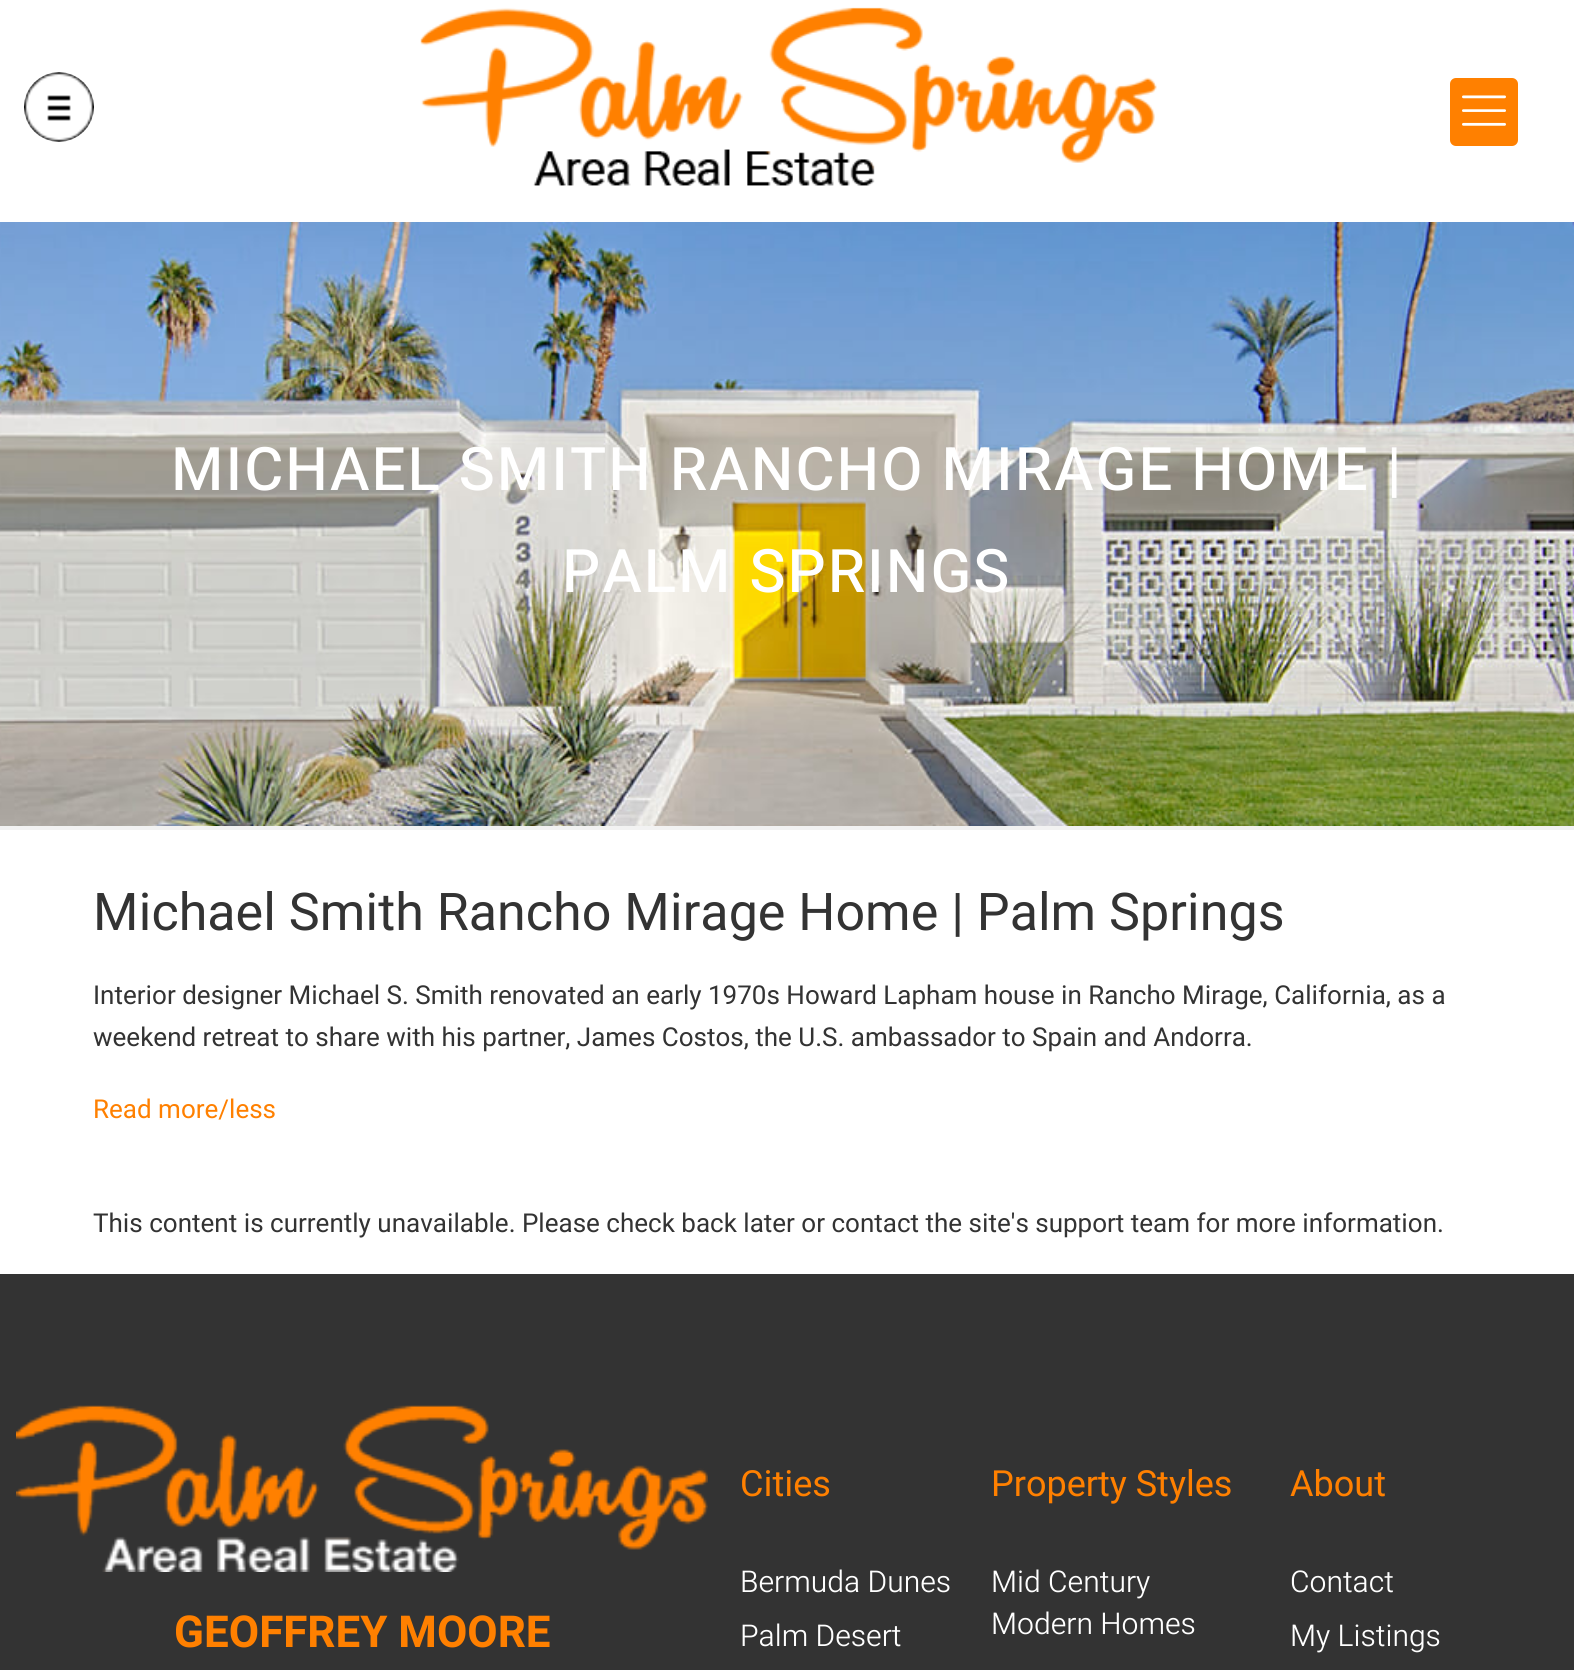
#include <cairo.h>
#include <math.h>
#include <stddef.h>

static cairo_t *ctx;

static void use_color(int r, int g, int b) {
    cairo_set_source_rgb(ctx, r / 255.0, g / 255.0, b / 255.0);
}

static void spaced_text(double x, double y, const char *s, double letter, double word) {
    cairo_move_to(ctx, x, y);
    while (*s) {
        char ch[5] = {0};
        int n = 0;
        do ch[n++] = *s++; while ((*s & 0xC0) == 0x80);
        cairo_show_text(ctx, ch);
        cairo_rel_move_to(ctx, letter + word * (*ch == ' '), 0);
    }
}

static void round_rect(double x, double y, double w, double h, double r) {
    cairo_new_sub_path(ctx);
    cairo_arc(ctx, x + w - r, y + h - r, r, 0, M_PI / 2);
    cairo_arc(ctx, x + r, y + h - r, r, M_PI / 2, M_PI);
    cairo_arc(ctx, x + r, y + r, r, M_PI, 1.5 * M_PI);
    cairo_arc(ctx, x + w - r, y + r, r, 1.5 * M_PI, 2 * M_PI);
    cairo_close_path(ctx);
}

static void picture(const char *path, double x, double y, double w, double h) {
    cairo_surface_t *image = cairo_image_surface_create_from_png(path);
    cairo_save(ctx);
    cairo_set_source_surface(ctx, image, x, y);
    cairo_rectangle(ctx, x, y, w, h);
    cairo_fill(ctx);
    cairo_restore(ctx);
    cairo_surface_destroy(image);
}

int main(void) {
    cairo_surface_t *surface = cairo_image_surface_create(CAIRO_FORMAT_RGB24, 1574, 1670);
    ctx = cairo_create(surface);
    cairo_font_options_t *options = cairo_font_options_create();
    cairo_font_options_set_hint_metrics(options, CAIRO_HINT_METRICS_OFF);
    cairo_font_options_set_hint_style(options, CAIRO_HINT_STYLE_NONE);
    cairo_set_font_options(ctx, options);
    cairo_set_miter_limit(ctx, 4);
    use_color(255, 255, 255);
    cairo_paint(ctx);
    picture("img1.png", 24, 72, 70, 70);
    picture("img2.png", 420, 7, 737, 179);
    use_color(255, 128, 0);
    round_rect(1450, 78, 68, 68, 6);
    cairo_fill(ctx);
    picture("img3.png", 1462, 95, 44, 31);
    picture("img4.png", 0, 222, 1574, 604);
    cairo_select_font_face(ctx, "Heebo Medium", CAIRO_FONT_SLANT_NORMAL, CAIRO_FONT_WEIGHT_NORMAL);
    cairo_set_font_size(ctx, 60);
    use_color(255, 255, 255);
    spaced_text(171, 490, "MICHAEL SMITH RANCHO MIRAGE HOME |", 2, 0);
    spaced_text(562, 592, "PALM SPRINGS", 2, 0);
    use_color(242, 242, 242);
    cairo_rectangle(ctx, 0, 826, 1574, 4);
    cairo_fill(ctx);
    cairo_select_font_face(ctx, "Heebo", CAIRO_FONT_SLANT_NORMAL, CAIRO_FONT_WEIGHT_NORMAL);
    cairo_set_font_size(ctx, 52);
    use_color(51, 51, 51);
    cairo_move_to(ctx, 93, 930);
    cairo_show_text(ctx, "Michael Smith Rancho Mirage Home | Palm Springs");
    cairo_set_font_size(ctx, 26);
    cairo_move_to(ctx, 93, 1004);
    cairo_show_text(ctx, "Interior designer Michael S. Smith renovated an early 1970s Howard Lapham house in Rancho Mirage, California, as a");
    cairo_move_to(ctx, 93, 1046);
    cairo_show_text(ctx, "weekend retreat to share with his partner, James Costos, the U.S. ambassador to Spain and Andorra.");
    use_color(255, 128, 0);
    cairo_move_to(ctx, 93, 1118);
    cairo_show_text(ctx, "Read more/less");
    use_color(51, 51, 51);
    cairo_move_to(ctx, 93, 1232);
    cairo_show_text(ctx, "This content is currently unavailable. Please check back later or contact the site's support team for more information.");
    cairo_rectangle(ctx, 0, 1274, 1574, 396);
    cairo_fill(ctx);
    picture("img5.png", 16, 1405, 692, 167);
    cairo_select_font_face(ctx, "Heebo", CAIRO_FONT_SLANT_NORMAL, CAIRO_FONT_WEIGHT_BOLD);
    cairo_set_font_size(ctx, 44);
    use_color(255, 128, 0);
    cairo_move_to(ctx, 174, 1647);
    cairo_show_text(ctx, "GEOFFREY MOORE");
    cairo_select_font_face(ctx, "Heebo", CAIRO_FONT_SLANT_NORMAL, CAIRO_FONT_WEIGHT_NORMAL);
    cairo_set_font_size(ctx, 36);
    cairo_move_to(ctx, 740, 1496);
    cairo_show_text(ctx, "Cities");
    cairo_select_font_face(ctx, "Heebo Light", CAIRO_FONT_SLANT_NORMAL, CAIRO_FONT_WEIGHT_NORMAL);
    cairo_set_font_size(ctx, 30);
    use_color(255, 255, 255);
    cairo_move_to(ctx, 740, 1592);
    cairo_show_text(ctx, "Bermuda Dunes");
    cairo_move_to(ctx, 740, 1646);
    cairo_show_text(ctx, "Palm Desert");
    cairo_select_font_face(ctx, "Heebo", CAIRO_FONT_SLANT_NORMAL, CAIRO_FONT_WEIGHT_NORMAL);
    cairo_set_font_size(ctx, 36);
    use_color(255, 128, 0);
    cairo_move_to(ctx, 991, 1496);
    cairo_show_text(ctx, "Property Styles");
    cairo_select_font_face(ctx, "Heebo Light", CAIRO_FONT_SLANT_NORMAL, CAIRO_FONT_WEIGHT_NORMAL);
    cairo_set_font_size(ctx, 30);
    use_color(255, 255, 255);
    cairo_move_to(ctx, 991, 1592);
    cairo_show_text(ctx, "Mid Century");
    cairo_move_to(ctx, 991, 1634);
    cairo_show_text(ctx, "Modern Homes");
    cairo_select_font_face(ctx, "Heebo", CAIRO_FONT_SLANT_NORMAL, CAIRO_FONT_WEIGHT_NORMAL);
    cairo_set_font_size(ctx, 36);
    use_color(255, 128, 0);
    cairo_move_to(ctx, 1290, 1496);
    cairo_show_text(ctx, "About");
    cairo_select_font_face(ctx, "Heebo Light", CAIRO_FONT_SLANT_NORMAL, CAIRO_FONT_WEIGHT_NORMAL);
    cairo_set_font_size(ctx, 30);
    use_color(255, 255, 255);
    cairo_move_to(ctx, 1290, 1592);
    cairo_show_text(ctx, "Contact");
    cairo_move_to(ctx, 1290, 1646);
    cairo_show_text(ctx, "My Listings");
    cairo_surface_write_to_png(surface, "result.png");
    cairo_font_options_destroy(options);
    cairo_destroy(ctx);
    cairo_surface_destroy(surface);
    return 0;
}
